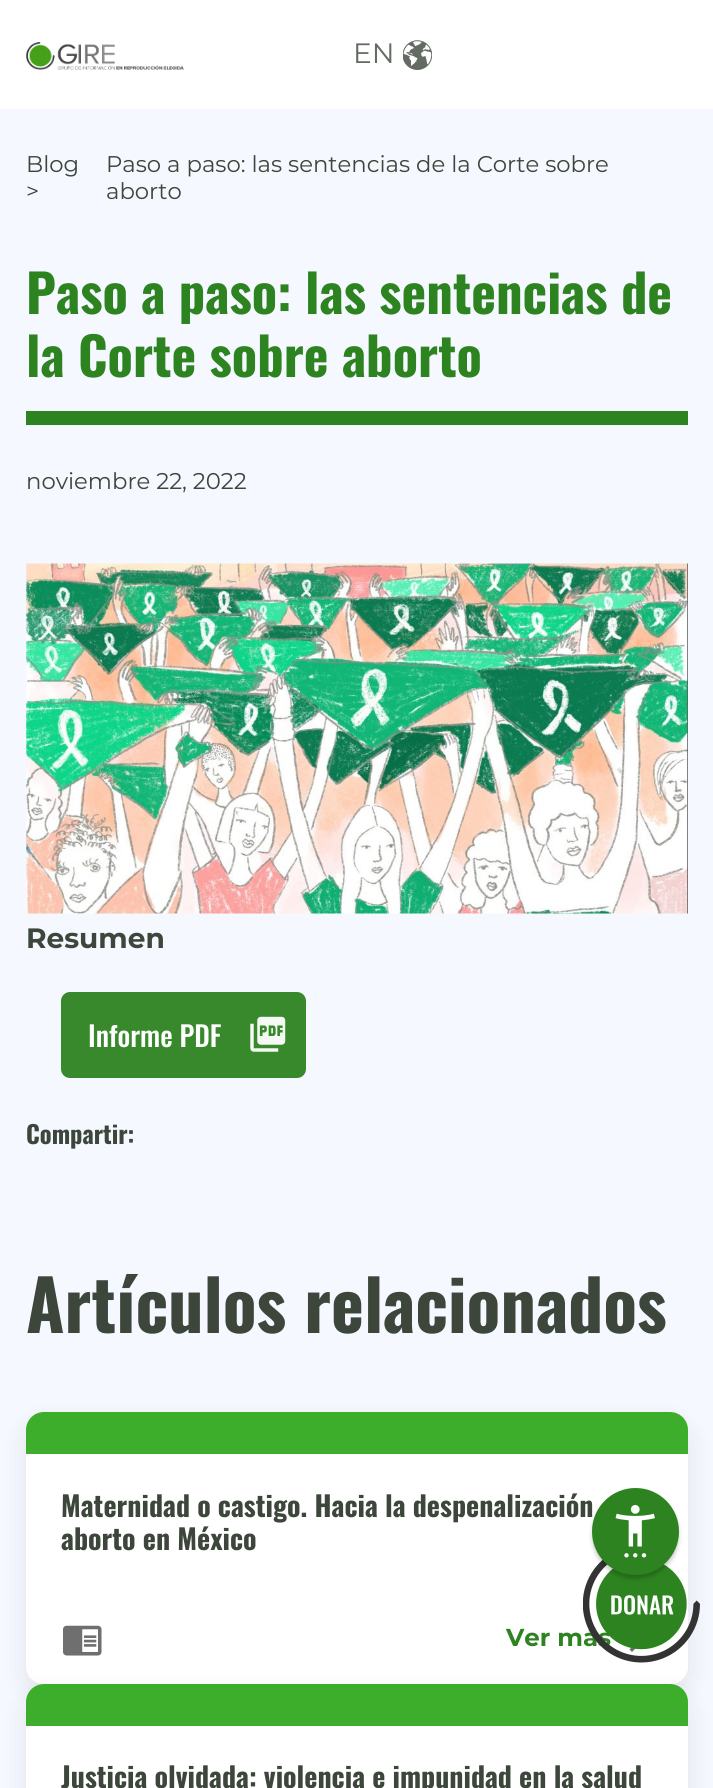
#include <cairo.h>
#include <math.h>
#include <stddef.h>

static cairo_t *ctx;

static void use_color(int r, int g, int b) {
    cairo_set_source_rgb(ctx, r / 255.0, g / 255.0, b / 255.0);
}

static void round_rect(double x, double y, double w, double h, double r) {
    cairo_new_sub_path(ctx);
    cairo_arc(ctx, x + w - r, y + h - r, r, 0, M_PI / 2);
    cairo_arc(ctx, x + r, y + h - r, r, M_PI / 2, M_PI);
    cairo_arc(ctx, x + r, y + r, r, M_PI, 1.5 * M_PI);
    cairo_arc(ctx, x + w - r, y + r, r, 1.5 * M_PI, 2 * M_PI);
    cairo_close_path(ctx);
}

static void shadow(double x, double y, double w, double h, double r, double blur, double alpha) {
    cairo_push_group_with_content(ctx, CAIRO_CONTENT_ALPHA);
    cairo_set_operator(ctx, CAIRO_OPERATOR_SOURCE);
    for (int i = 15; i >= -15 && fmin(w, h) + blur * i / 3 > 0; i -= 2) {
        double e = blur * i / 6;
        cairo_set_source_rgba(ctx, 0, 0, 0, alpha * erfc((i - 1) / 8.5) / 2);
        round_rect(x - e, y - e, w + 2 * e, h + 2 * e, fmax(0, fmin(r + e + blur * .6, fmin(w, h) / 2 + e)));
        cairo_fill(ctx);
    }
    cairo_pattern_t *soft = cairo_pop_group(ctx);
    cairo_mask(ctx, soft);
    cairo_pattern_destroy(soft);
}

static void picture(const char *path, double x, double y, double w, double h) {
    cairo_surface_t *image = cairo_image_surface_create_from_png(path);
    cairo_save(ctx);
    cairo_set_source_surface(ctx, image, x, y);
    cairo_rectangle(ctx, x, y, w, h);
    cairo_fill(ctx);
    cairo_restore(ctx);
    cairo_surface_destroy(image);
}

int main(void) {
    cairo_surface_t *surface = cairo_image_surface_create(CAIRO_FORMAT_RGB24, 713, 1788);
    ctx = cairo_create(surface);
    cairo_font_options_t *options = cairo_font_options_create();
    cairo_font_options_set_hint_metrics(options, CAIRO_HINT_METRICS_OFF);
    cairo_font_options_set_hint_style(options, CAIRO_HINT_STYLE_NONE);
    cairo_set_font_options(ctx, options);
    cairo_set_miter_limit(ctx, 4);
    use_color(245, 248, 255);
    cairo_paint(ctx);
    use_color(255, 255, 255);
    cairo_rectangle(ctx, 0, 0, 713, 109);
    cairo_fill(ctx);
    picture("img1.png", 26, 42, 158, 28);
    cairo_select_font_face(ctx, "Montserrat", CAIRO_FONT_SLANT_NORMAL, CAIRO_FONT_WEIGHT_NORMAL);
    cairo_set_font_size(ctx, 28);
    use_color(100, 107, 98);
    cairo_move_to(ctx, 353, 63);
    cairo_show_text(ctx, "EN");
    picture("img2.png", 403, 40, 29, 30);
    use_color(0, 0, 0);
    shadow(26, 1423, 662, 271, 18, 14, 0.08);
    use_color(255, 255, 255);
    round_rect(26, 1412, 662, 272, 18);
    cairo_fill(ctx);
    cairo_new_path(ctx);
    cairo_move_to(ctx, 26, 1617);
    cairo_line_to(ctx, 688, 1617);
    cairo_line_to(ctx, 688, 1666);
    cairo_curve_to(ctx, 688, 1676, 680, 1684, 670, 1684);
    cairo_line_to(ctx, 44, 1684);
    cairo_curve_to(ctx, 34, 1684, 26, 1676, 26, 1666);
    cairo_close_path(ctx);
    cairo_fill(ctx);
    cairo_select_font_face(ctx, "Montserrat", CAIRO_FONT_SLANT_NORMAL, CAIRO_FONT_WEIGHT_BOLD);
    cairo_set_font_size(ctx, 24.5);
    use_color(45, 131, 32);
    cairo_move_to(ctx, 506, 1646);
    cairo_show_text(ctx, "Ver más");
    use_color(111, 111, 111);
    cairo_new_path(ctx);
    cairo_move_to(ctx, 632, 1624);
    cairo_line_to(ctx, 646, 1638);
    cairo_line_to(ctx, 632, 1652);
    cairo_line_to(ctx, 629.5, 1649.5);
    cairo_line_to(ctx, 639, 1639.5);
    cairo_line_to(ctx, 617.5, 1639.5);
    cairo_line_to(ctx, 617.5, 1636.5);
    cairo_line_to(ctx, 639, 1636.5);
    cairo_line_to(ctx, 629.5, 1626.5);
    cairo_close_path(ctx);
    cairo_fill(ctx);
    picture("img6.png", 63, 1625, 39, 31);
    use_color(0, 0, 0);
    shadow(26, 1694, 662, 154, 18, 14, 0.08);
    picture("img3.png", 583, 1559, 117, 104);
    cairo_select_font_face(ctx, "Montserrat", CAIRO_FONT_SLANT_NORMAL, CAIRO_FONT_WEIGHT_NORMAL);
    cairo_set_font_size(ctx, 22.75);
    use_color(61, 70, 59);
    cairo_move_to(ctx, 26, 172);
    cairo_show_text(ctx, "Blog");
    cairo_move_to(ctx, 26, 199);
    cairo_show_text(ctx, ">");
    cairo_move_to(ctx, 106, 172);
    cairo_show_text(ctx, "Paso a paso: las sentencias de la Corte sobre");
    cairo_move_to(ctx, 106, 199);
    cairo_show_text(ctx, "aborto");
    use_color(45, 131, 32);
    cairo_rectangle(ctx, 26, 411, 662, 14);
    cairo_fill(ctx);
    cairo_select_font_face(ctx, "Oswald", CAIRO_FONT_SLANT_NORMAL, CAIRO_FONT_WEIGHT_BOLD);
    cairo_set_font_size(ctx, 52.5);
    cairo_move_to(ctx, 26, 314);
    cairo_show_text(ctx, "Paso a paso: las sentencias de");
    cairo_move_to(ctx, 26, 377);
    cairo_show_text(ctx, "la Corte sobre aborto");
    cairo_select_font_face(ctx, "Montserrat", CAIRO_FONT_SLANT_NORMAL, CAIRO_FONT_WEIGHT_NORMAL);
    cairo_set_font_size(ctx, 22.75);
    use_color(61, 70, 59);
    cairo_move_to(ctx, 26, 489);
    cairo_show_text(ctx, "noviembre 22, 2022");
    picture("img4.png", 26, 563, 662, 351);
    cairo_select_font_face(ctx, "Montserrat", CAIRO_FONT_SLANT_NORMAL, CAIRO_FONT_WEIGHT_BOLD);
    cairo_set_font_size(ctx, 28);
    cairo_move_to(ctx, 26, 948);
    cairo_show_text(ctx, "Resumen");
    use_color(55, 137, 43);
    round_rect(61, 992, 245, 86, 9);
    cairo_fill(ctx);
    cairo_select_font_face(ctx, "Oswald Medium", CAIRO_FONT_SLANT_NORMAL, CAIRO_FONT_WEIGHT_NORMAL);
    use_color(255, 255, 255);
    cairo_move_to(ctx, 88, 1047);
    cairo_show_text(ctx, "Informe PDF");
    picture("img5.png", 250, 1016, 36, 36);
    cairo_select_font_face(ctx, "Oswald", CAIRO_FONT_SLANT_NORMAL, CAIRO_FONT_WEIGHT_BOLD);
    cairo_set_font_size(ctx, 24.5);
    use_color(61, 70, 59);
    cairo_move_to(ctx, 26, 1144);
    cairo_show_text(ctx, "Compartir:");
    cairo_set_font_size(ctx, 70);
    cairo_move_to(ctx, 26, 1333);
    cairo_show_text(ctx, "Artículos relacionados");
    use_color(61, 174, 43);
    cairo_new_path(ctx);
    cairo_move_to(ctx, 44, 1412);
    cairo_line_to(ctx, 670, 1412);
    cairo_curve_to(ctx, 680, 1412, 688, 1420, 688, 1430);
    cairo_line_to(ctx, 688, 1454);
    cairo_line_to(ctx, 26, 1454);
    cairo_line_to(ctx, 26, 1430);
    cairo_curve_to(ctx, 26, 1420, 34, 1412, 44, 1412);
    cairo_close_path(ctx);
    cairo_fill(ctx);
    cairo_set_font_size(ctx, 28);
    use_color(61, 70, 59);
    cairo_move_to(ctx, 61, 1517);
    cairo_show_text(ctx, "Maternidad o castigo. Hacia la despenalización");
    cairo_move_to(ctx, 61, 1550);
    cairo_show_text(ctx, "aborto en México");
    use_color(255, 255, 255);
    round_rect(26, 1684, 662, 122, 18);
    cairo_fill(ctx);
    use_color(61, 174, 43);
    cairo_new_path(ctx);
    cairo_move_to(ctx, 44, 1684);
    cairo_line_to(ctx, 670, 1684);
    cairo_curve_to(ctx, 680, 1684, 688, 1692, 688, 1702);
    cairo_line_to(ctx, 688, 1726);
    cairo_line_to(ctx, 26, 1726);
    cairo_line_to(ctx, 26, 1702);
    cairo_curve_to(ctx, 26, 1692, 34, 1684, 44, 1684);
    cairo_close_path(ctx);
    cairo_fill(ctx);
    use_color(61, 70, 59);
    cairo_move_to(ctx, 61, 1788);
    cairo_show_text(ctx, "Justicia olvidada: violencia e impunidad en la salud");
    use_color(0, 0, 0);
    shadow(592, 1491, 87, 88, 43.5, 2, 0.2);
    use_color(45, 131, 32);
    cairo_arc(ctx, 635.5, 1531.5, 41.5, 0, 2 * M_PI);
    cairo_fill_preserve(ctx);
    cairo_set_line_width(ctx, 4);
    cairo_stroke(ctx);
    picture("img7.png", 615, 1505, 40, 53);
    cairo_surface_write_to_png(surface, "result.png");
    cairo_font_options_destroy(options);
    cairo_destroy(ctx);
    cairo_surface_destroy(surface);
    return 0;
}
